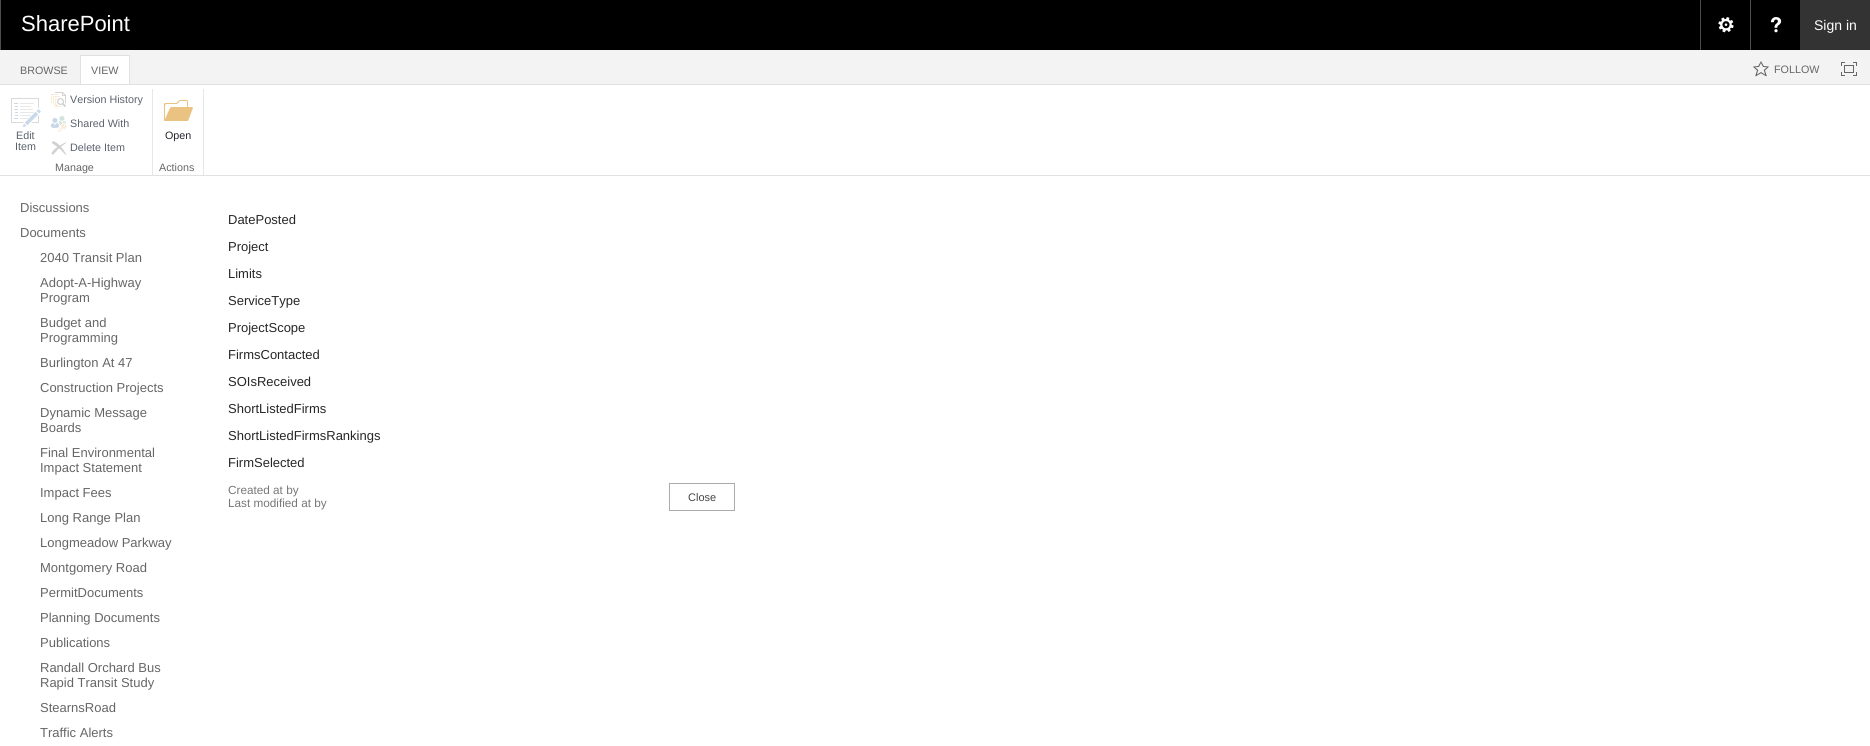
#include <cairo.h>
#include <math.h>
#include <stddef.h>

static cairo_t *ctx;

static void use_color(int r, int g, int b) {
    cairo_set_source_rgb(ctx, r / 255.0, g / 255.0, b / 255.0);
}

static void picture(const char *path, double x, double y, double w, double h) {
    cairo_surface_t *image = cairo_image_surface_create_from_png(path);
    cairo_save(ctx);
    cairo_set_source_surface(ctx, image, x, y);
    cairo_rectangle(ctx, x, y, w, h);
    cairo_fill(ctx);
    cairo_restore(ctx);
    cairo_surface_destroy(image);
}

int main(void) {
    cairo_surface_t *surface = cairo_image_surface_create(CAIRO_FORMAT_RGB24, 1870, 746);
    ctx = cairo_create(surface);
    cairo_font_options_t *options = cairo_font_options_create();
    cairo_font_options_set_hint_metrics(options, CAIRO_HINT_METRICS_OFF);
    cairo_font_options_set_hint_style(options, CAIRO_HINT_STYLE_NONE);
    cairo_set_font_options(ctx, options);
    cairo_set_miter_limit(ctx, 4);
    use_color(255, 255, 255);
    cairo_paint(ctx);
    use_color(0, 0, 0);
    cairo_rectangle(ctx, 1, 0, 1799, 50);
    cairo_fill(ctx);
    use_color(77, 77, 77);
    cairo_rectangle(ctx, 0, 0, 1, 50);
    cairo_fill(ctx);
    cairo_select_font_face(ctx, "Liberation Sans", CAIRO_FONT_SLANT_NORMAL, CAIRO_FONT_WEIGHT_NORMAL);
    cairo_set_font_size(ctx, 22);
    use_color(255, 255, 255);
    cairo_move_to(ctx, 21, 31);
    cairo_show_text(ctx, "SharePoint");
    use_color(77, 77, 77);
    cairo_rectangle(ctx, 1700, 0, 1, 50);
    cairo_fill(ctx);
    picture("img1.png", 1718, 17, 16, 16);
    cairo_rectangle(ctx, 1750, 0, 1, 50);
    cairo_fill(ctx);
    picture("img2.png", 1770, 17, 12, 16);
    use_color(51, 51, 51);
    cairo_rectangle(ctx, 1800, 0, 70, 50);
    cairo_fill(ctx);
    cairo_set_font_size(ctx, 14);
    use_color(255, 255, 255);
    cairo_move_to(ctx, 1814, 30);
    cairo_show_text(ctx, "Sign in");
    use_color(243, 243, 243);
    cairo_rectangle(ctx, 0, 50, 1870, 34);
    cairo_fill(ctx);
    use_color(225, 225, 225);
    cairo_rectangle(ctx, 0, 84, 1870, 1);
    cairo_fill(ctx);
    cairo_set_font_size(ctx, 10.75);
    use_color(102, 102, 102);
    cairo_move_to(ctx, 20, 74);
    cairo_show_text(ctx, "BROWSE");
    use_color(255, 255, 255);
    cairo_rectangle(ctx, 81, 56, 48, 28);
    cairo_fill(ctx);
    use_color(225, 225, 225);
    cairo_rectangle(ctx, 80, 55, 50, 1);
    cairo_fill(ctx);
    cairo_rectangle(ctx, 129, 55, 1, 29);
    cairo_fill(ctx);
    cairo_rectangle(ctx, 80, 55, 1, 29);
    cairo_fill(ctx);
    use_color(102, 102, 102);
    cairo_move_to(ctx, 91, 74);
    cairo_show_text(ctx, "VIEW");
    picture("img3.png", 1753, 61, 16, 16);
    cairo_move_to(ctx, 1774, 73);
    cairo_show_text(ctx, "FOLLOW");
    picture("img4.png", 1841, 62, 16, 14);
    use_color(225, 225, 225);
    cairo_rectangle(ctx, 0, 175, 1870, 1);
    cairo_fill(ctx);
    picture("img5.png", 11, 98, 30, 29);
    use_color(91, 98, 108);
    cairo_move_to(ctx, 16, 139);
    cairo_show_text(ctx, "Edit");
    cairo_move_to(ctx, 15, 150);
    cairo_show_text(ctx, "Item");
    picture("img6.png", 51, 92, 15, 15);
    cairo_move_to(ctx, 70, 103);
    cairo_show_text(ctx, "Version History");
    picture("img7.png", 51, 116, 16, 16);
    cairo_move_to(ctx, 70, 127);
    cairo_show_text(ctx, "Shared With");
    picture("img8.png", 51, 141, 16, 14);
    cairo_move_to(ctx, 70, 151);
    cairo_show_text(ctx, "Delete Item");
    use_color(102, 102, 102);
    cairo_move_to(ctx, 55, 171);
    cairo_show_text(ctx, "Manage");
    use_color(231, 231, 232);
    cairo_rectangle(ctx, 152, 89, 1, 86);
    cairo_fill(ctx);
    picture("img9.png", 163, 100, 30, 21);
    use_color(35, 39, 44);
    cairo_move_to(ctx, 165, 139);
    cairo_show_text(ctx, "Open");
    use_color(102, 102, 102);
    cairo_move_to(ctx, 159, 171);
    cairo_show_text(ctx, "Actions");
    use_color(231, 231, 232);
    cairo_rectangle(ctx, 203, 89, 1, 86);
    cairo_fill(ctx);
    cairo_set_font_size(ctx, 13);
    use_color(102, 102, 102);
    cairo_move_to(ctx, 20, 212);
    cairo_show_text(ctx, "Discussions");
    cairo_move_to(ctx, 20, 237);
    cairo_show_text(ctx, "Documents");
    cairo_move_to(ctx, 40, 262);
    cairo_show_text(ctx, "2040 Transit Plan");
    cairo_move_to(ctx, 40, 287);
    cairo_show_text(ctx, "Adopt-A-Highway");
    cairo_move_to(ctx, 40, 302);
    cairo_show_text(ctx, "Program");
    cairo_move_to(ctx, 40, 327);
    cairo_show_text(ctx, "Budget and");
    cairo_move_to(ctx, 40, 342);
    cairo_show_text(ctx, "Programming");
    cairo_move_to(ctx, 40, 367);
    cairo_show_text(ctx, "Burlington At 47");
    cairo_move_to(ctx, 40, 392);
    cairo_show_text(ctx, "Construction Projects");
    cairo_move_to(ctx, 40, 417);
    cairo_show_text(ctx, "Dynamic Message");
    cairo_move_to(ctx, 40, 432);
    cairo_show_text(ctx, "Boards");
    cairo_move_to(ctx, 40, 457);
    cairo_show_text(ctx, "Final Environmental");
    cairo_move_to(ctx, 40, 472);
    cairo_show_text(ctx, "Impact Statement");
    cairo_move_to(ctx, 40, 497);
    cairo_show_text(ctx, "Impact Fees");
    cairo_move_to(ctx, 40, 522);
    cairo_show_text(ctx, "Long Range Plan");
    cairo_move_to(ctx, 40, 547);
    cairo_show_text(ctx, "Longmeadow Parkway");
    cairo_move_to(ctx, 40, 572);
    cairo_show_text(ctx, "Montgomery Road");
    cairo_move_to(ctx, 40, 597);
    cairo_show_text(ctx, "PermitDocuments");
    cairo_move_to(ctx, 40, 622);
    cairo_show_text(ctx, "Planning Documents");
    cairo_move_to(ctx, 40, 647);
    cairo_show_text(ctx, "Publications");
    cairo_move_to(ctx, 40, 672);
    cairo_show_text(ctx, "Randall Orchard Bus");
    cairo_move_to(ctx, 40, 687);
    cairo_show_text(ctx, "Rapid Transit Study");
    cairo_move_to(ctx, 40, 712);
    cairo_show_text(ctx, "StearnsRoad");
    cairo_move_to(ctx, 40, 737);
    cairo_show_text(ctx, "Traffic Alerts");
    use_color(38, 38, 38);
    cairo_move_to(ctx, 228, 224);
    cairo_show_text(ctx, "DatePosted");
    cairo_move_to(ctx, 228, 251);
    cairo_show_text(ctx, "Project");
    cairo_move_to(ctx, 228, 278);
    cairo_show_text(ctx, "Limits");
    cairo_move_to(ctx, 228, 305);
    cairo_show_text(ctx, "ServiceType");
    cairo_move_to(ctx, 228, 332);
    cairo_show_text(ctx, "ProjectScope");
    cairo_move_to(ctx, 228, 359);
    cairo_show_text(ctx, "FirmsContacted");
    cairo_move_to(ctx, 228, 386);
    cairo_show_text(ctx, "SOIsReceived");
    cairo_move_to(ctx, 228, 413);
    cairo_show_text(ctx, "ShortListedFirms");
    cairo_move_to(ctx, 228, 440);
    cairo_show_text(ctx, "ShortListedFirmsRankings");
    cairo_move_to(ctx, 228, 467);
    cairo_show_text(ctx, "FirmSelected");
    cairo_set_font_size(ctx, 11.75);
    use_color(119, 119, 119);
    cairo_move_to(ctx, 228, 494);
    cairo_show_text(ctx, "Created at by");
    cairo_move_to(ctx, 228, 507);
    cairo_show_text(ctx, "Last modified at by");
    cairo_rectangle(ctx, 669.5, 483.5, 65, 27);
    use_color(171, 171, 171);
    cairo_set_line_width(ctx, 1);
    cairo_stroke(ctx);
    cairo_set_font_size(ctx, 11);
    use_color(68, 68, 68);
    cairo_move_to(ctx, 688, 501);
    cairo_show_text(ctx, "Close");
    cairo_surface_write_to_png(surface, "result.png");
    cairo_font_options_destroy(options);
    cairo_destroy(ctx);
    cairo_surface_destroy(surface);
    return 0;
}
